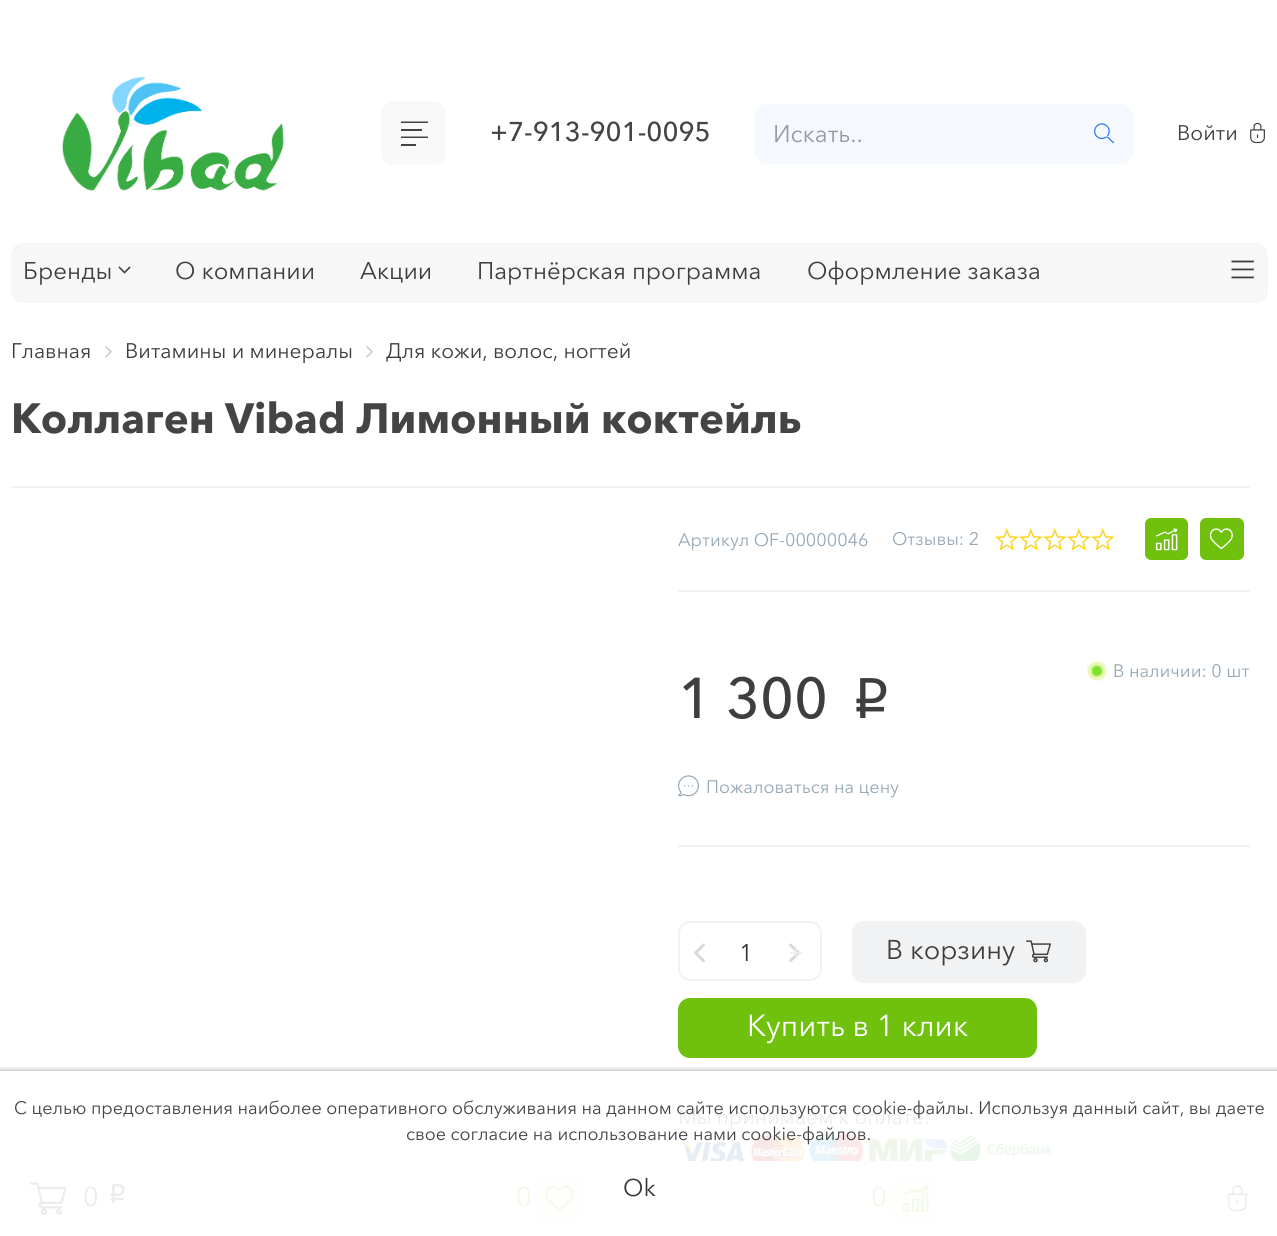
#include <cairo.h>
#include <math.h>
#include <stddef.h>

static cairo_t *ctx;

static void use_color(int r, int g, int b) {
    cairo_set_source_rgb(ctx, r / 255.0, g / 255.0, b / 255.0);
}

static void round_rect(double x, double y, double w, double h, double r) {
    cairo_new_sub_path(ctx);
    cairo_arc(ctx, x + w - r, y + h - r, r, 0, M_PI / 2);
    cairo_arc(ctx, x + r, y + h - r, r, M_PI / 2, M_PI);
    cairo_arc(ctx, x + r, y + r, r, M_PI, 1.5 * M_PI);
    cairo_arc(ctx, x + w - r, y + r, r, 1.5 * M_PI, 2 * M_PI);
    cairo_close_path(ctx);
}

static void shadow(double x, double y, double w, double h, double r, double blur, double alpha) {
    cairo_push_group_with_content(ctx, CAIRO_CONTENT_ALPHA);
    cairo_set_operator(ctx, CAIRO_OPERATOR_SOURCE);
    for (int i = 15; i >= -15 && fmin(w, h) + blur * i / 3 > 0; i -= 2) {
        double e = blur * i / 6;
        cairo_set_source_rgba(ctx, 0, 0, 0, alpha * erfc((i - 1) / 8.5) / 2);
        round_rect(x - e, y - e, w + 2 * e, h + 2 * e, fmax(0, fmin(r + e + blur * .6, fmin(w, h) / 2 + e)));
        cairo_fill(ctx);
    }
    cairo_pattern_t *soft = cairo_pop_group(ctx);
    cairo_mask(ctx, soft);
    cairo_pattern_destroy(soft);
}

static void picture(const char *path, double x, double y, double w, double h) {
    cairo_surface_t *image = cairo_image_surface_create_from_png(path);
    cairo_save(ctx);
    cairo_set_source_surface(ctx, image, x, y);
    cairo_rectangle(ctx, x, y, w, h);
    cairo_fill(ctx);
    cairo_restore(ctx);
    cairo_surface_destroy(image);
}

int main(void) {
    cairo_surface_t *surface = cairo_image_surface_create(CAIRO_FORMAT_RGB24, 1277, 1236);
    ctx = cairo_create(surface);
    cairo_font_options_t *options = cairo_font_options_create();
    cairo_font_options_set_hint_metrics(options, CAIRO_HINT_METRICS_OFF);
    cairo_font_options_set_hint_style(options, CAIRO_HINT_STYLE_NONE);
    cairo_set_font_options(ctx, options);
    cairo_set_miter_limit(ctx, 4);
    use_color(255, 255, 255);
    cairo_paint(ctx);
    picture("img1.png", 62, 76, 222, 115);
    use_color(249, 249, 249);
    round_rect(381, 101, 65, 64, 12);
    cairo_fill(ctx);
    cairo_save(ctx);
    cairo_rectangle(ctx, 401, 116, 27, 7);
    cairo_clip(ctx);
    cairo_new_path(ctx);
    cairo_move_to(ctx, 400.5, 123);
    cairo_line_to(ctx, 436.5, 123);
    use_color(69, 68, 68);
    cairo_set_line_width(ctx, 3);
    cairo_stroke(ctx);
    cairo_restore(ctx);
    use_color(69, 68, 68);
    cairo_rectangle(ctx, 401, 129, 21, 2);
    cairo_fill(ctx);
    cairo_save(ctx);
    cairo_rectangle(ctx, 401, 131, 27, 7);
    cairo_clip(ctx);
    cairo_new_path(ctx);
    cairo_move_to(ctx, 400.5, 138);
    cairo_line_to(ctx, 436.5, 138);
    cairo_set_line_width(ctx, 3);
    cairo_stroke(ctx);
    cairo_restore(ctx);
    cairo_rectangle(ctx, 401, 144, 15, 2);
    cairo_fill(ctx);
    cairo_select_font_face(ctx, "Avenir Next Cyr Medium", CAIRO_FONT_SLANT_NORMAL, CAIRO_FONT_WEIGHT_NORMAL);
    cairo_set_font_size(ctx, 27);
    cairo_move_to(ctx, 490, 141);
    cairo_show_text(ctx, "+7-913-901-0095");
    use_color(245, 249, 255);
    round_rect(755, 104, 378, 60, 12);
    cairo_fill(ctx);
    cairo_select_font_face(ctx, "Avenir Next Cyr", CAIRO_FONT_SLANT_NORMAL, CAIRO_FONT_WEIGHT_NORMAL);
    cairo_set_font_size(ctx, 24);
    use_color(153, 153, 153);
    cairo_move_to(ctx, 773, 142);
    cairo_show_text(ctx, "Искать..");
    picture("img2.png", 1094, 123, 20, 21);
    cairo_set_font_size(ctx, 21);
    use_color(63, 62, 62);
    cairo_move_to(ctx, 1177, 140);
    cairo_show_text(ctx, "Войти");
    picture("img3.png", 1250, 122, 15, 22);
    use_color(247, 247, 247);
    round_rect(11, 243, 1257, 60, 12);
    cairo_fill(ctx);
    cairo_set_font_size(ctx, 24);
    use_color(63, 62, 62);
    cairo_move_to(ctx, 23, 279);
    cairo_show_text(ctx, "Бренды");
    picture("img4.png", 118, 266, 13, 8);
    cairo_move_to(ctx, 175, 279);
    cairo_show_text(ctx, "О компании");
    cairo_move_to(ctx, 360, 279);
    cairo_show_text(ctx, "Акции");
    cairo_move_to(ctx, 477, 279);
    cairo_show_text(ctx, "Партнёрская программа");
    cairo_move_to(ctx, 807, 279);
    cairo_show_text(ctx, "Оформление заказа");
    picture("img5.png", 1231, 260, 23, 19);
    cairo_set_font_size(ctx, 21);
    cairo_move_to(ctx, 11, 358);
    cairo_show_text(ctx, "Главная");
    picture("img6.png", 105, 346, 7, 12);
    cairo_move_to(ctx, 125, 358);
    cairo_show_text(ctx, "Витамины и минералы");
    picture("img6.png", 366, 346, 7, 12);
    cairo_move_to(ctx, 386, 358);
    cairo_show_text(ctx, "Для кожи, волос, ногтей");
    use_color(241, 242, 243);
    cairo_rectangle(ctx, 11, 486, 1239, 2);
    cairo_fill(ctx);
    cairo_select_font_face(ctx, "Avenir Next Cyr", CAIRO_FONT_SLANT_NORMAL, CAIRO_FONT_WEIGHT_BOLD);
    cairo_set_font_size(ctx, 42);
    use_color(69, 68, 68);
    cairo_move_to(ctx, 11, 433);
    cairo_show_text(ctx, "Коллаген Vibad Лимонный коктейль");
    use_color(241, 242, 243);
    cairo_rectangle(ctx, 678, 590, 572, 2);
    cairo_fill(ctx);
    cairo_select_font_face(ctx, "Avenir Next Cyr", CAIRO_FONT_SLANT_NORMAL, CAIRO_FONT_WEIGHT_NORMAL);
    cairo_set_font_size(ctx, 18);
    use_color(150, 168, 182);
    cairo_move_to(ctx, 678, 546);
    cairo_show_text(ctx, "Артикул OF-00000046");
    cairo_move_to(ctx, 892, 545);
    cairo_show_text(ctx, "Отзывы: 2");
    picture("img8.png", 996, 529, 118, 21);
    picture("img7.png", 994, 528, 121, 22);
    use_color(111, 193, 13);
    round_rect(1145, 518, 43, 42, 6);
    cairo_fill(ctx);
    picture("img9.png", 1155, 528, 23, 23);
    round_rect(1200, 518, 44, 42, 6);
    cairo_fill(ctx);
    picture("img10.png", 1209, 528, 24, 22);
    use_color(241, 242, 243);
    cairo_rectangle(ctx, 678, 845, 572, 2);
    cairo_fill(ctx);
    picture("img11.png", 1087, 661, 20, 20);
    use_color(150, 168, 182);
    cairo_move_to(ctx, 1113, 677);
    cairo_show_text(ctx, "В наличии: 0 шт");
    cairo_select_font_face(ctx, "Avenir Next Cyr Medium", CAIRO_FONT_SLANT_NORMAL, CAIRO_FONT_WEIGHT_NORMAL);
    cairo_set_font_size(ctx, 57);
    use_color(63, 62, 62);
    cairo_move_to(ctx, 678, 718);
    cairo_show_text(ctx, "1 300");
    cairo_select_font_face(ctx, "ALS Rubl", CAIRO_FONT_SLANT_NORMAL, CAIRO_FONT_WEIGHT_NORMAL);
    cairo_move_to(ctx, 845, 718);
    cairo_show_text(ctx, "p");
    picture("img12.png", 678, 775, 21, 22);
    cairo_select_font_face(ctx, "Avenir Next Cyr", CAIRO_FONT_SLANT_NORMAL, CAIRO_FONT_WEIGHT_NORMAL);
    cairo_set_font_size(ctx, 18);
    use_color(150, 168, 182);
    cairo_move_to(ctx, 706, 793);
    cairo_show_text(ctx, "Пожаловаться на цену");
    round_rect(679, 922, 142, 58, 11);
    use_color(241, 242, 243);
    cairo_stroke(ctx);
    picture("img13.png", 694, 943, 11, 20);
    cairo_set_font_size(ctx, 24);
    use_color(54, 54, 54);
    cairo_move_to(ctx, 739, 961);
    cairo_show_text(ctx, "1");
    picture("img14.png", 789, 943, 11, 20);
    use_color(236, 236, 236);
    cairo_move_to(ctx, 788, 960);
    cairo_show_text(ctx, "+");
    use_color(241, 242, 243);
    round_rect(852, 921, 234, 62, 12);
    cairo_fill(ctx);
    cairo_set_font_size(ctx, 27);
    use_color(63, 62, 62);
    cairo_move_to(ctx, 886, 959);
    cairo_show_text(ctx, "В корзину");
    picture("img15.png", 1026, 940, 25, 23);
    use_color(111, 193, 13);
    round_rect(679, 999, 357, 58, 11);
    cairo_fill_preserve(ctx);
    cairo_stroke(ctx);
    cairo_set_font_size(ctx, 30.25);
    use_color(255, 255, 255);
    cairo_move_to(ctx, 747, 1036);
    cairo_show_text(ctx, "Купить в 1 клик");
    cairo_set_font_size(ctx, 21);
    use_color(236, 236, 236);
    cairo_move_to(ctx, 678, 1124);
    cairo_show_text(ctx, "Мы принимаем к оплате:");
    picture("img16.png", 678, 1133, 375, 28);
    picture("img17.png", 30, 1182, 37, 33);
    use_color(254, 255, 252);
    round_rect(537, 1178, 44, 42, 6);
    cairo_fill(ctx);
    picture("img18.png", 545, 1185, 29, 26);
    round_rect(893, 1178, 43, 42, 6);
    cairo_fill(ctx);
    picture("img19.png", 902, 1185, 27, 27);
    picture("img20.png", 1227, 1185, 20, 27);
    cairo_save(ctx);
    cairo_rectangle(ctx, 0, 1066, 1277, 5);
    cairo_clip(ctx);
    use_color(0, 0, 0);
    shadow(0, 1071, 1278, 165, 0, 3, 0.4);
    cairo_restore(ctx);
    cairo_set_font_size(ctx, 18);
    use_color(69, 68, 68);
    cairo_move_to(ctx, 14, 1114);
    cairo_show_text(ctx, "С целью предоставления наиболее оперативного обслуживания на данном сайте используются cookie-файлы. Используя данный сайт, вы даете");
    cairo_move_to(ctx, 406, 1140);
    cairo_show_text(ctx, "свое согласие на использование нами cookie-файлов.");
    cairo_set_font_size(ctx, 24);
    use_color(54, 54, 54);
    cairo_move_to(ctx, 623, 1196);
    cairo_show_text(ctx, "Ok");
    cairo_set_font_size(ctx, 27);
    use_color(236, 236, 236);
    cairo_move_to(ctx, 83, 1206);
    cairo_show_text(ctx, "0");
    cairo_select_font_face(ctx, "ALS Rubl", CAIRO_FONT_SLANT_NORMAL, CAIRO_FONT_WEIGHT_NORMAL);
    cairo_move_to(ctx, 105, 1203);
    cairo_show_text(ctx, "p");
    cairo_select_font_face(ctx, "Avenir Next Cyr", CAIRO_FONT_SLANT_NORMAL, CAIRO_FONT_WEIGHT_NORMAL);
    use_color(241, 249, 231);
    cairo_move_to(ctx, 516, 1206);
    cairo_show_text(ctx, "0");
    cairo_move_to(ctx, 871, 1206);
    cairo_show_text(ctx, "0");
    cairo_surface_write_to_png(surface, "result.png");
    cairo_font_options_destroy(options);
    cairo_destroy(ctx);
    cairo_surface_destroy(surface);
    return 0;
}
